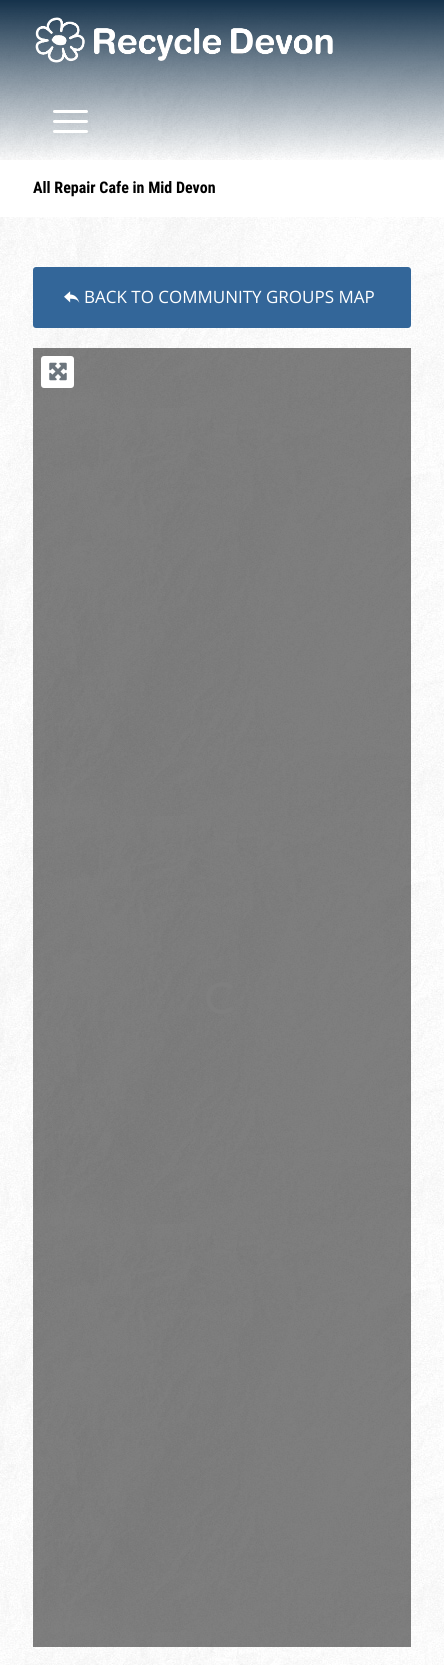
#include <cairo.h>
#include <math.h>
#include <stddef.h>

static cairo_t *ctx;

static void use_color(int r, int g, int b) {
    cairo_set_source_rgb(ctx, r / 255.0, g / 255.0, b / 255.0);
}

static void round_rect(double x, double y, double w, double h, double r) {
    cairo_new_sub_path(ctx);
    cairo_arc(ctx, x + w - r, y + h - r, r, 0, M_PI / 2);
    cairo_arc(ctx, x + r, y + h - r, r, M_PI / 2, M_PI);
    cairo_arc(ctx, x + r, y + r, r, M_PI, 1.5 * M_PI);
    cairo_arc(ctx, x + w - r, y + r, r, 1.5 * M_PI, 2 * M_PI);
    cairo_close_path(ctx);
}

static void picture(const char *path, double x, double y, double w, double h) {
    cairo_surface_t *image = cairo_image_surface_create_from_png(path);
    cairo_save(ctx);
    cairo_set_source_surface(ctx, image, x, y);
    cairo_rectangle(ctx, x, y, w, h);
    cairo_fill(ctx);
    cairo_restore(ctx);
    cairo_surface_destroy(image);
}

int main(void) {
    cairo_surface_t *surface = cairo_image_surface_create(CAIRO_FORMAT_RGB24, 444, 1665);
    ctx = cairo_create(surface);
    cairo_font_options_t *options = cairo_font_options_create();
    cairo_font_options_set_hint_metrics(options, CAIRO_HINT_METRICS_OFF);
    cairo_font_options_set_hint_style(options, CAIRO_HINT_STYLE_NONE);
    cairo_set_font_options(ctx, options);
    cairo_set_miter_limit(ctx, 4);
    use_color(255, 255, 255);
    cairo_paint(ctx);
    picture("img1.png", 0, 0, 444, 1665);
    picture("img2.png", 35, 17, 298, 46);
    use_color(255, 255, 255);
    round_rect(53, 120, 35, 3, 1.5);
    cairo_fill(ctx);
    round_rect(53, 110, 35, 3, 1.5);
    cairo_fill(ctx);
    round_rect(53, 130, 35, 3, 1.5);
    cairo_fill(ctx);
    cairo_rectangle(ctx, 0, 160, 444, 57);
    cairo_fill(ctx);
    cairo_select_font_face(ctx, "Roboto Condensed", CAIRO_FONT_SLANT_NORMAL, CAIRO_FONT_WEIGHT_BOLD);
    cairo_set_font_size(ctx, 16);
    use_color(0, 0, 0);
    cairo_move_to(ctx, 33, 193);
    cairo_show_text(ctx, "All Repair Cafe in Mid Devon");
    use_color(51, 102, 153);
    round_rect(33, 267, 378, 61, 3);
    cairo_fill(ctx);
    picture("img3.png", 64, 291, 16, 12);
    cairo_select_font_face(ctx, "Open Sans", CAIRO_FONT_SLANT_NORMAL, CAIRO_FONT_WEIGHT_NORMAL);
    cairo_set_font_size(ctx, 17);
    use_color(255, 255, 255);
    cairo_move_to(ctx, 84, 303);
    cairo_show_text(ctx, "BACK TO COMMUNITY GROUPS MAP");
    cairo_new_path(ctx);
    cairo_move_to(ctx, 232, 1008);
    cairo_curve_to(ctx, 229.5, 1010.5, 225.5, 1012, 222, 1012);
    cairo_curve_to(ctx, 205.5, 1012, 203, 987.5, 219.5, 984.5);
    cairo_curve_to(ctx, 224, 983.5, 228.5, 985, 232, 988);
    cairo_set_line_width(ctx, 4);
    cairo_stroke(ctx);
    cairo_set_source_rgba(ctx, 0, 0, 0, 0.5);
    cairo_rectangle(ctx, 33, 348, 378, 1299);
    cairo_fill(ctx);
    use_color(255, 255, 255);
    round_rect(41, 356, 33, 32, 3);
    cairo_fill(ctx);
    picture("img4.png", 49, 362, 18, 19);
    cairo_surface_write_to_png(surface, "result.png");
    cairo_font_options_destroy(options);
    cairo_destroy(ctx);
    cairo_surface_destroy(surface);
    return 0;
}
